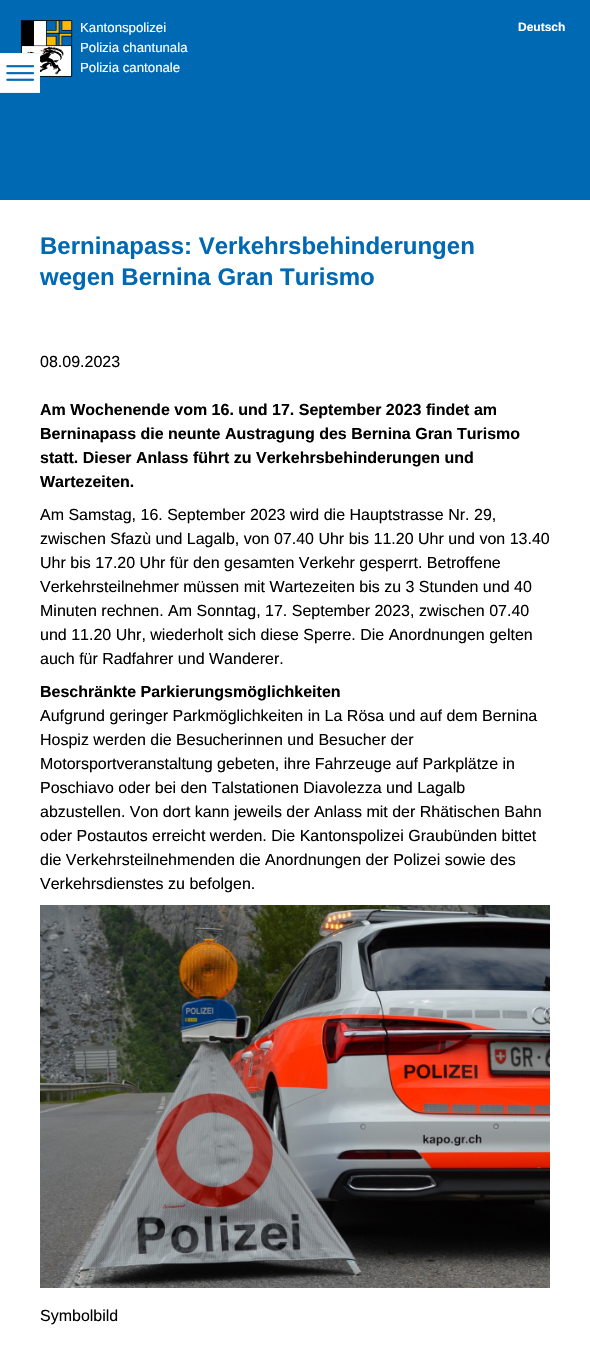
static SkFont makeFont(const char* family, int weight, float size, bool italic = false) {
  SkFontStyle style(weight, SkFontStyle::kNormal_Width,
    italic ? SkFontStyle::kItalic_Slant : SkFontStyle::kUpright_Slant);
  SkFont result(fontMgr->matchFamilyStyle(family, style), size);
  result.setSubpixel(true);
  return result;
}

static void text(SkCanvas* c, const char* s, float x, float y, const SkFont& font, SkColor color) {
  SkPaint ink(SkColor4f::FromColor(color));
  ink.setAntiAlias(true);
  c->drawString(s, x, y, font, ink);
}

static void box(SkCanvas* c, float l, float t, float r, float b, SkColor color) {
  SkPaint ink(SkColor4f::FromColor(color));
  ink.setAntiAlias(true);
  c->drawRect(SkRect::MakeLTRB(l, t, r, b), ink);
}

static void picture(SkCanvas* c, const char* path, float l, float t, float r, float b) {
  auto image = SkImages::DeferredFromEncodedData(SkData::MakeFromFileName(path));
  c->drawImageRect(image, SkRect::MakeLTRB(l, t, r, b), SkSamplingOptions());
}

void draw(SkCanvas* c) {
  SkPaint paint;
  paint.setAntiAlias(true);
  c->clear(0xffffffff);
  box(c, 0, 0, 590, 200, 0xff0069b4);
  picture(c, "img_01.png", 20, 20, 73, 77);
  SkFont face1 = makeFont("Liberation Sans", 400, 13.25f);
  text(c, "Kantonspolizei", 80, 32, face1, 0xffffffff);
  text(c, "Polizia chantunala", 80, 52, face1, 0xffffffff);
  text(c, "Polizia cantonale", 80, 72, face1, 0xffffffff);
  SkFont face2 = makeFont("Liberation Sans", 700, 12);
  text(c, "Deutsch", 518, 31, face2, 0xffffffff);
  box(c, 20, 53, 40, 77, 0xff0069b4);
  picture(c, "img_02.png", 0, 53, 40, 93);
  SkFont face3 = makeFont("Liberation Sans", 700, 24);
  text(c, "Berninapass: Verkehrsbehinderungen", 40, 254, face3, 0xff0069b4);
  text(c, "wegen Bernina Gran Turismo", 40, 285, face3, 0xff0069b4);
  SkFont face4 = makeFont("Liberation Sans", 400, 16);
  text(c, "08.09.2023", 40, 367, face4, 0xff000000);
  SkFont face5 = makeFont("Liberation Sans", 700, 16);
  text(c, "Am Wochenende vom 16. und 17. September 2023 findet am", 40, 415, face5, 0xff000000);
  text(c, "Berninapass die neunte Austragung des Bernina Gran Turismo", 40, 439, face5, 0xff000000);
  text(c, "statt. Dieser Anlass führt zu Verkehrsbehinderungen und", 40, 463, face5, 0xff000000);
  text(c, "Wartezeiten.", 40, 487, face5, 0xff000000);
  text(c, "Am Samstag, 16. September 2023 wird die Hauptstrasse Nr. 29,", 40, 520, face4, 0xff000000);
  text(c, "zwischen Sfazù und Lagalb, von 07.40 Uhr bis 11.20 Uhr und von 13.40", 40, 544, face4, 0xff000000);
  text(c, "Uhr bis 17.20 Uhr für den gesamten Verkehr gesperrt. Betroffene", 40, 568, face4, 0xff000000);
  text(c, "Verkehrsteilnehmer müssen mit Wartezeiten bis zu 3 Stunden und 40", 40, 592, face4, 0xff000000);
  text(c, "Minuten rechnen. Am Sonntag, 17. September 2023, zwischen 07.40", 40, 616, face4, 0xff000000);
  text(c, "und 11.20 Uhr, wiederholt sich diese Sperre. Die Anordnungen gelten", 40, 640, face4, 0xff000000);
  text(c, "auch für Radfahrer und Wanderer.", 40, 664, face4, 0xff000000);
  text(c, "Beschränkte Parkierungsmöglichkeiten", 40, 697, face5, 0xff000000);
  text(c, "Aufgrund geringer Parkmöglichkeiten in La Rösa und auf dem Bernina", 40, 721, face4, 0xff000000);
  text(c, "Hospiz werden die Besucherinnen und Besucher der", 40, 745, face4, 0xff000000);
  text(c, "Motorsportveranstaltung gebeten, ihre Fahrzeuge auf Parkplätze in", 40, 769, face4, 0xff000000);
  text(c, "Poschiavo oder bei den Talstationen Diavolezza und Lagalb", 40, 793, face4, 0xff000000);
  text(c, "abzustellen. Von dort kann jeweils der Anlass mit der Rhätischen Bahn", 40, 817, face4, 0xff000000);
  text(c, "oder Postautos erreicht werden. Die Kantonspolizei Graubünden bittet", 40, 841, face4, 0xff000000);
  text(c, "die Verkehrsteilnehmenden die Anordnungen der Polizei sowie des", 40, 865, face4, 0xff000000);
  text(c, "Verkehrsdienstes zu befolgen.", 40, 889, face4, 0xff000000);
  picture(c, "img_03.png", 40, 905, 550, 1288);
  text(c, "Symbolbild", 40, 1321, face4, 0xff000000);
}
